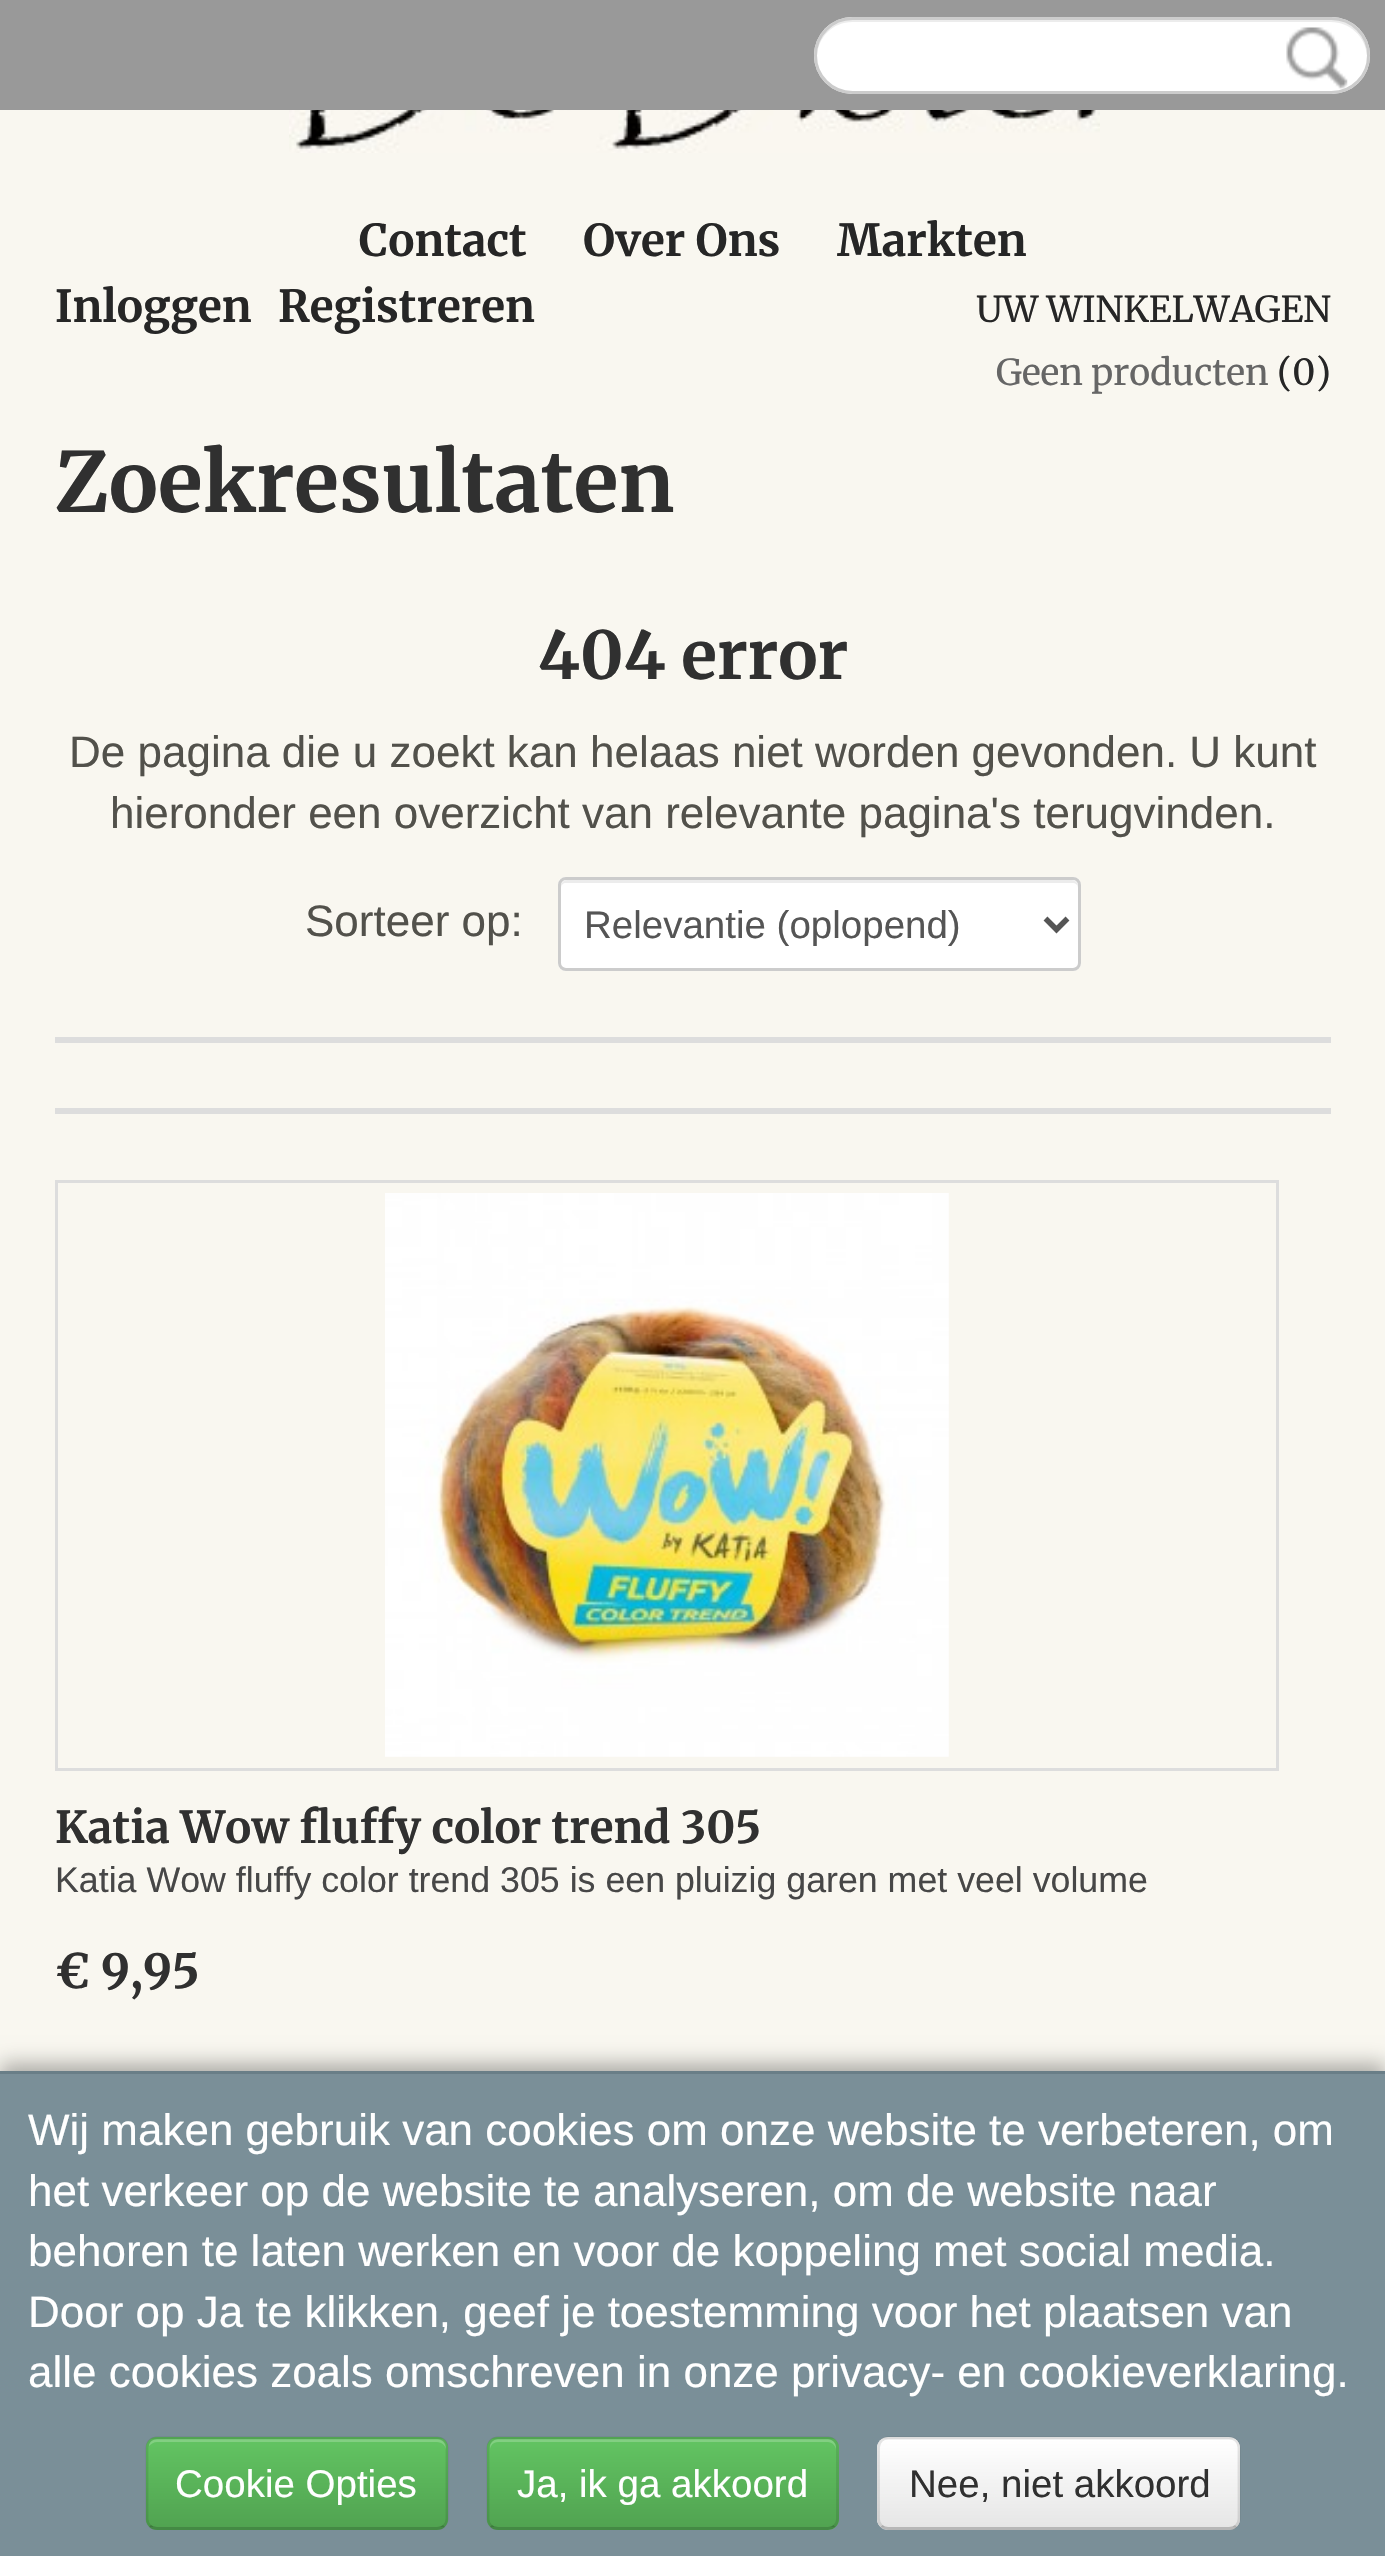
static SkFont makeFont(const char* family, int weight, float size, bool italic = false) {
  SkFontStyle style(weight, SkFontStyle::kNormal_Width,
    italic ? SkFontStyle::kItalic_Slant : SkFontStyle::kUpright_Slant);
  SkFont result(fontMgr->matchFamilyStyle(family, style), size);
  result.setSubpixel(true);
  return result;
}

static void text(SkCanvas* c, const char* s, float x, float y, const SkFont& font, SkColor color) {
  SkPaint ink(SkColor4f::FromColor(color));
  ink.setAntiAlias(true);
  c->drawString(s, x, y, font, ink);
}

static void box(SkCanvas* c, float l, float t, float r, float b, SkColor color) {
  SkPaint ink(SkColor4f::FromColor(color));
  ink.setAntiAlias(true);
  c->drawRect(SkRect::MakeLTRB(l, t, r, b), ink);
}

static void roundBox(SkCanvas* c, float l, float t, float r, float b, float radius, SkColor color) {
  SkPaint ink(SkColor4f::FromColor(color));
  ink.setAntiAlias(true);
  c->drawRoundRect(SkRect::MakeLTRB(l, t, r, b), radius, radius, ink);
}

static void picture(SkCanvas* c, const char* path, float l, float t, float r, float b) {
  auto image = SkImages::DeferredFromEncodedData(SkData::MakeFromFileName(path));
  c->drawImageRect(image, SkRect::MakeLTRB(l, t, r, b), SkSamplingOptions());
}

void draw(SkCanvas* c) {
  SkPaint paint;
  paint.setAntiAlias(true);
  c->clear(0xfff9f7f0);
  box(c, 0, 0, 1385, 110, 0xff999999);
  roundBox(c, 814, 17, 1370, 94, 38.5f, 0xffffffff);
  paint.setColor(0xffececec);
  c->drawPath(SkPathBuilder().moveTo(852, 22).lineTo(1331, 22).cubicTo(1350, 22, 1366, 37, 1367, 56).cubicTo(1368, 36, 1351, 19, 1331, 19).lineTo(853, 19).cubicTo(833, 19, 816, 36, 817, 56).cubicTo(818, 37, 833, 22, 852, 22).close().detach(), paint);
  paint.setStyle(SkPaint::kStroke_Style);
  paint.setStrokeWidth(3);
  paint.setColor(0xffcccccc);
  c->drawRoundRect(SkRect::MakeLTRB(815.5f, 18.5f, 1368.5f, 92.5f), 37, 37, paint);
  picture(c, "img_01.png", 1286, 27, 1348, 89);
  picture(c, "img_02.png", 289, 110, 1100, 153);
  SkFont face1 = makeFont("Merriweather", 700, 44);
  text(c, "Contact", 359, 256, face1, 0xff262626);
  text(c, "Over Ons", 583, 256, face1, 0xff262626);
  text(c, "Markten", 837, 256, face1, 0xff262626);
  text(c, "Inloggen", 55, 322, face1, 0xff262626);
  text(c, "Registreren", 278, 322, face1, 0xff262626);
  SkFont face2 = makeFont("Merriweather", 400, 35.75f);
  text(c, "UW WINKELWAGEN", 976, 322, face2, 0xff262626);
  text(c, "Geen producten", 996, 385, face2, 0xff666666);
  text(c, "(0)", 1277, 385, face2, 0xff262626);
  SkFont face3 = makeFont("Merriweather", 700, 82.5f);
  text(c, "Zoekresultaten", 55, 512, face3, 0xff303030);
  SkFont face4 = makeFont("Merriweather", 700, 66);
  text(c, "404 error", 538, 679, face4, 0xff303030);
  SkFont face5 = makeFont("Liberation Sans", 400, 44);
  text(c, "De pagina die u zoekt kan helaas niet worden gevonden. U kunt", 69, 767, face5, 0xff52514b);
  text(c, "hieronder een overzicht van relevante pagina's terugvinden.", 110, 828, face5, 0xff52514b);
  text(c, "Sorteer op:", 305, 936, face5, 0xff52514b);
  roundBox(c, 558, 877, 1081, 971, 8, 0xffffffff);
  paint.setStyle(SkPaint::kFill_Style);
  paint.setColor(0xffececec);
  c->drawPath(SkPathBuilder().moveTo(566, 883).lineTo(1072, 883).cubicTo(1076, 883, 1078, 885, 1078, 888).lineTo(1078, 886).cubicTo(1078, 883, 1075, 880, 1072, 880).lineTo(567, 880).cubicTo(564, 880, 561, 883, 561, 886).lineTo(561, 888).cubicTo(561, 885, 563, 883, 566, 883).close().detach(), paint);
  paint.setStyle(SkPaint::kStroke_Style);
  paint.setColor(0xffcccccc);
  c->drawRoundRect(SkRect::MakeLTRB(559.5f, 878.5f, 1079.5f, 969.5f), 6.5f, 6.5f, paint);
  paint.setStrokeWidth(5.5f);
  paint.setColor(0xff555555);
  c->drawPath(SkPathBuilder().moveTo(1045.5f, 918.5f).lineTo(1056.5f, 929.5f).lineTo(1067.5f, 918.5f).detach(), paint);
  SkFont face6 = makeFont("Liberation Sans", 400, 38.5f);
  text(c, "Relevantie (oplopend)", 584, 938, face6, 0xff555555);
  box(c, 55, 1037, 1331, 1043, 0xffdddddd);
  box(c, 55, 1108, 1331, 1114, 0xffdddddd);
  paint.setStrokeWidth(3);
  paint.setColor(0xffdddddd);
  c->drawRect(SkRect::MakeLTRB(56.5f, 1181.5f, 1277.5f, 1769.5f), paint);
  picture(c, "img_03.png", 385, 1193, 949, 1757);
  text(c, "Katia Wow fluffy color trend 305", 55, 1843, face1, 0xff303030);
  SkFont face7 = makeFont("Liberation Sans", 400, 35.75f);
  text(c, "Katia Wow fluffy color trend 305 is een pluizig garen met veel volume", 55, 1892, face7, 0xff474747);
  SkFont face8 = makeFont("Merriweather", 700, 47);
  text(c, "€ 9,95", 55, 1988, face8, 0xff303030);
  paint.setStyle(SkPaint::kFill_Style);
  paint.setColor(0x4d000000);
  paint.setMaskFilter(SkMaskFilter::MakeBlur(kNormal_SkBlurStyle, 9.5f));
  c->drawRect(SkRect::MakeLTRB(0, 2063, 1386, 2549), paint);
  paint.setMaskFilter(nullptr);
  box(c, 0, 2074, 1385, 2556, 0xff7a8f98);
  box(c, 0, 2071, 1385, 2074, 0xff697e87);
  text(c, "Wij maken gebruik van cookies om onze website te verbeteren, om", 28, 2145, face5, 0xffffffff);
  text(c, "het verkeer op de website te analyseren, om de website naar", 28, 2206, face5, 0xffffffff);
  text(c, "behoren te laten werken en voor de koppeling met social media.", 28, 2266, face5, 0xffffffff);
  text(c, "Door op Ja te klikken, geef je toestemming voor het plaatsen van", 28, 2327, face5, 0xffffffff);
  text(c, "alle cookies zoals omschreven in onze privacy- en cookieverklaring.", 28, 2387, face5, 0xffffffff);
  roundBox(c, 146, 2437, 448, 2530, 11, 0xff5bb75b);
  c->save();
  c->clipPath(SkPathBuilder().moveTo(157, 2437).lineTo(437, 2437).cubicTo(443, 2437, 448, 2442, 448, 2448).lineTo(448, 2519).cubicTo(448, 2525, 443, 2530, 437, 2530).lineTo(157, 2530).cubicTo(151, 2530, 146, 2525, 146, 2519).lineTo(146, 2448).cubicTo(146, 2442, 151, 2437, 157, 2437).close().detach(), true);
  {
    const SkColor colors[] = {0xff62c462, 0xff51a351};
    const float stops[] = {0, 1};
    const SkPoint ends[] = {{297, 2439}, {297, 2527}};
    paint.setShader(SkGradientShader::MakeLinear(ends, colors, stops, 2, SkTileMode::kClamp));
    paint.setAlpha(255);
  }
  c->drawRect(SkRect::MakeLTRB(146, 2439, 448, 2527), paint);
  c->restore();
  paint.setShader(nullptr);
  paint.setColor(0x33ffffff);
  c->drawPath(SkPathBuilder().moveTo(157, 2442).lineTo(437, 2442).cubicTo(442, 2442, 446, 2446, 446, 2450).lineTo(446, 2447).cubicTo(446, 2443, 442, 2439, 438, 2439).lineTo(157, 2439).cubicTo(153, 2439, 149, 2442, 149, 2446).cubicTo(151, 2444, 154, 2442, 157, 2442).close().detach(), paint);
  paint.setStyle(SkPaint::kStroke_Style);
  paint.setStrokeWidth(2.8f);
  paint.setColor(0x40000000);
  c->drawPath(SkPathBuilder().moveTo(444, 2526).cubicTo(442.5f, 2527.5f, 440, 2528.5f, 437, 2528.5f).lineTo(157, 2528.5f).cubicTo(154, 2528.5f, 151.5f, 2527.5f, 150, 2526).detach(), paint);
  paint.setColor(0x1a000000);
  c->drawPath(SkPathBuilder().moveTo(150, 2526).cubicTo(148, 2524, 147, 2521.5f, 147, 2519).lineTo(147, 2447.5f).cubicTo(147, 2445, 148, 2442.5f, 150, 2440.5f).cubicTo(151.5f, 2439, 154, 2438, 157, 2438).lineTo(437, 2438).cubicTo(440, 2438, 442.5f, 2439, 444, 2440.5f).cubicTo(446, 2442.5f, 447, 2445, 447, 2447.5f).lineTo(447, 2519).cubicTo(447, 2521.5f, 446, 2524, 444, 2526).detach(), paint);
  text(c, "Cookie Opties", 175, 2497, face6, 0xffffffff);
  roundBox(c, 487, 2437, 839, 2530, 11, 0xff5bb75b);
  c->save();
  c->clipPath(SkPathBuilder().moveTo(498, 2437).lineTo(828, 2437).cubicTo(834, 2437, 839, 2442, 839, 2448).lineTo(839, 2519).cubicTo(839, 2525, 834, 2530, 828, 2530).lineTo(498, 2530).cubicTo(492, 2530, 487, 2525, 487, 2519).lineTo(487, 2448).cubicTo(487, 2442, 492, 2437, 498, 2437).close().detach(), true);
  paint.setStyle(SkPaint::kFill_Style);
  {
    const SkColor colors[] = {0xff62c462, 0xff51a351};
    const float stops[] = {0, 1};
    const SkPoint ends[] = {{663, 2439}, {663, 2527}};
    paint.setShader(SkGradientShader::MakeLinear(ends, colors, stops, 2, SkTileMode::kClamp));
    paint.setAlpha(255);
  }
  c->drawRect(SkRect::MakeLTRB(487, 2439, 839, 2527), paint);
  c->restore();
  paint.setShader(nullptr);
  paint.setColor(0x33ffffff);
  c->drawPath(SkPathBuilder().moveTo(498, 2442).lineTo(828, 2442).cubicTo(832, 2442, 836, 2446, 836, 2450).lineTo(836, 2447).cubicTo(836, 2443, 832, 2439, 828, 2439).lineTo(498, 2439).cubicTo(494, 2439, 490, 2443, 490, 2447).lineTo(490, 2450).cubicTo(490, 2446, 493, 2442, 498, 2442).close().detach(), paint);
  paint.setStyle(SkPaint::kStroke_Style);
  paint.setColor(0x40000000);
  c->drawPath(SkPathBuilder().moveTo(834.5f, 2526).cubicTo(833, 2527.5f, 830.5f, 2528.5f, 828, 2528.5f).lineTo(498, 2528.5f).cubicTo(495, 2528.5f, 492.5f, 2527.5f, 491, 2526).detach(), paint);
  paint.setColor(0x1a000000);
  c->drawPath(SkPathBuilder().moveTo(491, 2526).cubicTo(489, 2524, 488, 2521.5f, 488, 2519).lineTo(488, 2447.5f).cubicTo(488, 2445, 489, 2442.5f, 491, 2440.5f).cubicTo(492.5f, 2439, 495, 2438, 498, 2438).lineTo(828, 2438).cubicTo(830.5f, 2438, 833, 2439, 834.5f, 2440.5f).cubicTo(836.5f, 2442.5f, 837.5f, 2445, 837.5f, 2447.5f).lineTo(837.5f, 2519).cubicTo(837.5f, 2521.5f, 836.5f, 2524, 834.5f, 2526).detach(), paint);
  text(c, "Ja, ik ga akkoord", 517, 2497, face6, 0xffffffff);
  roundBox(c, 877, 2437, 1240, 2530, 11, 0xfff5f5f5);
  c->save();
  c->clipPath(SkPathBuilder().moveTo(888, 2437).lineTo(1229, 2437).cubicTo(1235, 2437, 1240, 2442, 1240, 2448).lineTo(1240, 2519).cubicTo(1240, 2525, 1235, 2530, 1229, 2530).lineTo(888, 2530).cubicTo(882, 2530, 877, 2525, 877, 2519).lineTo(877, 2448).cubicTo(877, 2442, 882, 2437, 888, 2437).close().detach(), true);
  paint.setStyle(SkPaint::kFill_Style);
  {
    const SkColor colors[] = {0xffffffff, 0xffe6e6e6};
    const float stops[] = {0, 1};
    const SkPoint ends[] = {{1059, 2439}, {1059, 2527}};
    paint.setShader(SkGradientShader::MakeLinear(ends, colors, stops, 2, SkTileMode::kClamp));
    paint.setAlpha(255);
  }
  c->drawRect(SkRect::MakeLTRB(877, 2439, 1240, 2527), paint);
  c->restore();
  paint.setStyle(SkPaint::kStroke_Style);
  paint.setShader(nullptr);
  paint.setColor(0x40000000);
  c->drawPath(SkPathBuilder().moveTo(1236, 2526).cubicTo(1234.5f, 2527.5f, 1232, 2528.5f, 1229, 2528.5f).lineTo(888, 2528.5f).cubicTo(885.5f, 2528.5f, 883, 2527.5f, 881.5f, 2526).detach(), paint);
  paint.setColor(0x1a000000);
  c->drawPath(SkPathBuilder().moveTo(881.5f, 2526).cubicTo(879.5f, 2524, 878.5f, 2521.5f, 878.5f, 2519).lineTo(878.5f, 2447.5f).cubicTo(878.5f, 2445, 879.5f, 2442.5f, 881.5f, 2440.5f).cubicTo(883, 2439, 885.5f, 2438, 888, 2438).lineTo(1229, 2438).cubicTo(1232, 2438, 1234.5f, 2439, 1236, 2440.5f).cubicTo(1238, 2442.5f, 1239, 2445, 1239, 2447.5f).lineTo(1239, 2519).cubicTo(1239, 2521.5f, 1238, 2524, 1236, 2526).detach(), paint);
  text(c, "Nee, niet akkoord", 909, 2497, face6, 0xff303030);
}
